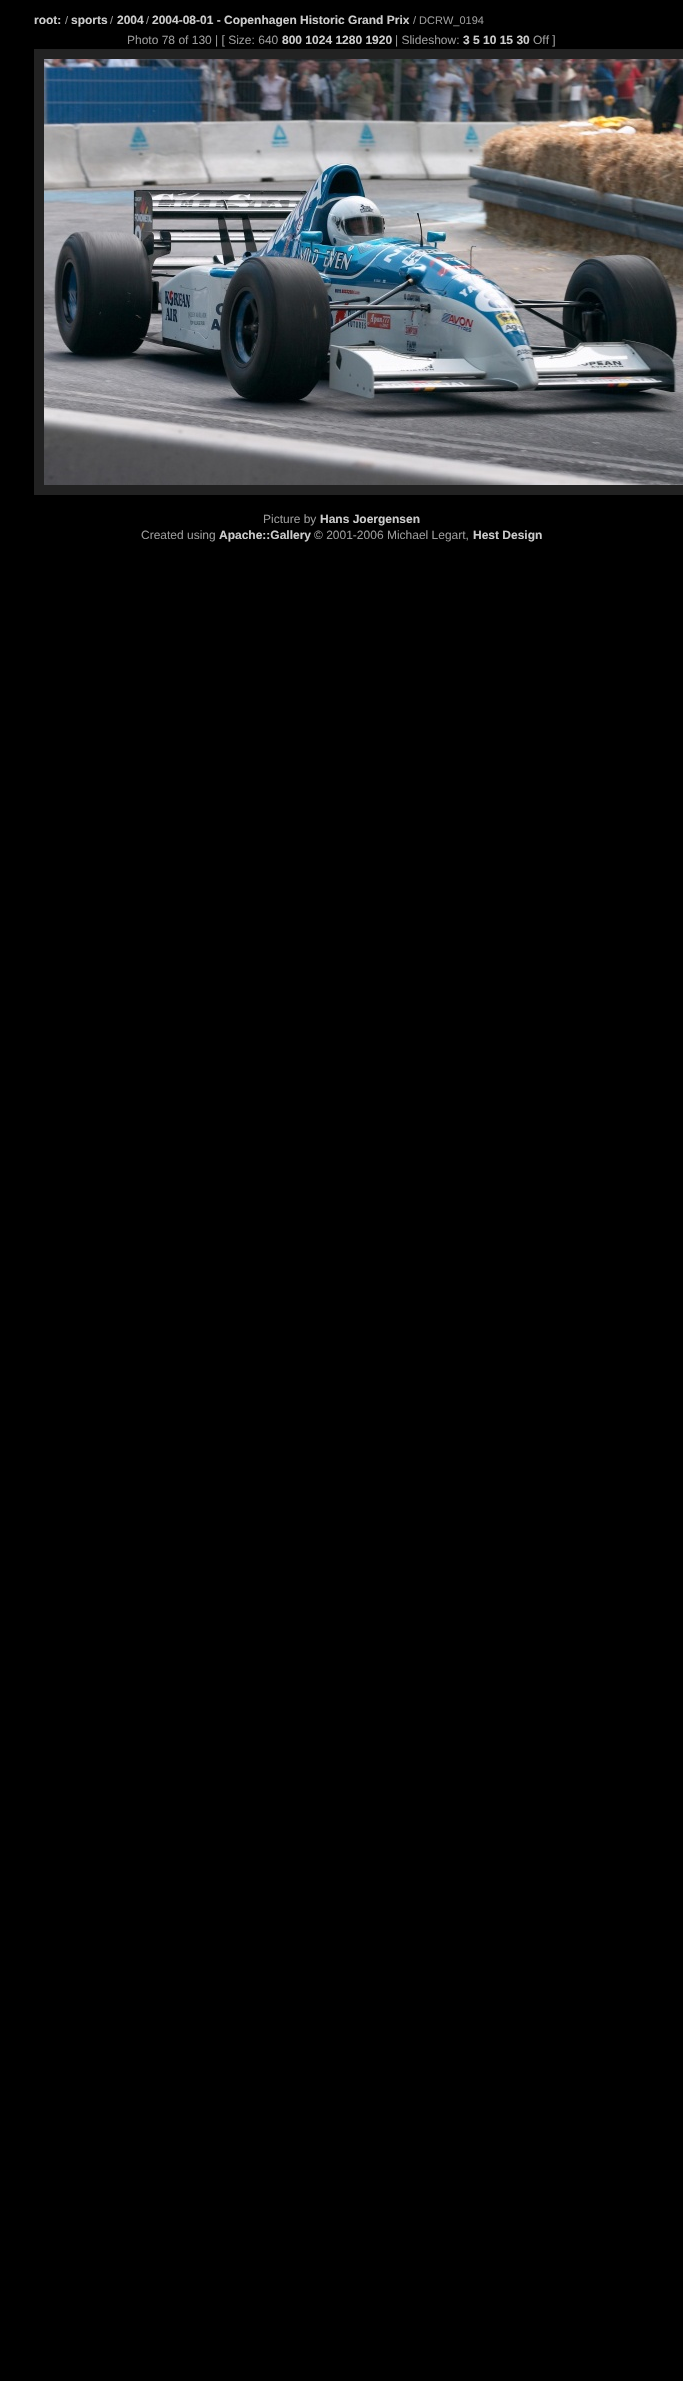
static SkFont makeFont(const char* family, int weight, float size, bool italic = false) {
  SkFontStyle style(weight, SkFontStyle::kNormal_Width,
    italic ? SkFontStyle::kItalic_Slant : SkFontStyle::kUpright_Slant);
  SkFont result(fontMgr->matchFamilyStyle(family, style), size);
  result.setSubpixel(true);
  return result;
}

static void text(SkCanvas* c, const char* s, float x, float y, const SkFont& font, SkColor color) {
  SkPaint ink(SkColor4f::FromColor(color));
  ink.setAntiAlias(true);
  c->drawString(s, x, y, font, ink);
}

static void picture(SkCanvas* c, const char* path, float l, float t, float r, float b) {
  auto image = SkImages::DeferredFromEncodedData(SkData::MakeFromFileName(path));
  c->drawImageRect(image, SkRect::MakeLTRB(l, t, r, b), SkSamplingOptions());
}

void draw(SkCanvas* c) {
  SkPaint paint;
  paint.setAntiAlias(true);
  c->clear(0xff000000);
  SkFont face1 = makeFont("Liberation Sans", 700, 12);
  text(c, "root:", 34, 24, face1, 0xffcccccc);
  SkFont face2 = makeFont("Liberation Sans", 400, 11);
  text(c, "/", 65, 24, face2, 0xff999999);
  text(c, "sports", 71, 24, face1, 0xffcccccc);
  text(c, "/", 110, 24, face2, 0xff999999);
  text(c, "2004", 117, 24, face1, 0xffcccccc);
  text(c, "/", 146, 24, face2, 0xff999999);
  text(c, "2004-08-01 - Copenhagen Historic Grand Prix", 152, 24, face1, 0xffcccccc);
  text(c, "/ DCRW_0194", 413, 24, face2, 0xff999999);
  SkFont face3 = makeFont("Liberation Sans", 400, 12);
  text(c, "Photo 78 of 130 | [ Size: 640", 127, 44, face3, 0xff999999);
  text(c, "800 1024 1280 1920", 282, 44, face1, 0xffcccccc);
  text(c, "| Slideshow:", 395, 44, face3, 0xff999999);
  text(c, "3 5 10 15 30", 463, 44, face1, 0xffcccccc);
  text(c, "Off ]", 533, 44, face3, 0xff999999);
  paint.setStyle(SkPaint::kStroke_Style);
  paint.setStrokeWidth(10);
  paint.setColor(0xff222222);
  c->drawRect(SkRect::MakeLTRB(39, 54, 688, 490), paint);
  picture(c, "img_01.png", 44, 59, 683, 485);
  text(c, "Picture by", 263, 523, face3, 0xff999999);
  text(c, "Hans Joergensen", 320, 523, face1, 0xffcccccc);
  text(c, "Created using", 141, 539, face3, 0xff999999);
  text(c, "Apache::Gallery", 219, 539, face1, 0xffcccccc);
  text(c, "© 2001-2006 Michael Legart,", 314, 539, face3, 0xff999999);
  text(c, "Hest Design", 473, 539, face1, 0xffcccccc);
}
